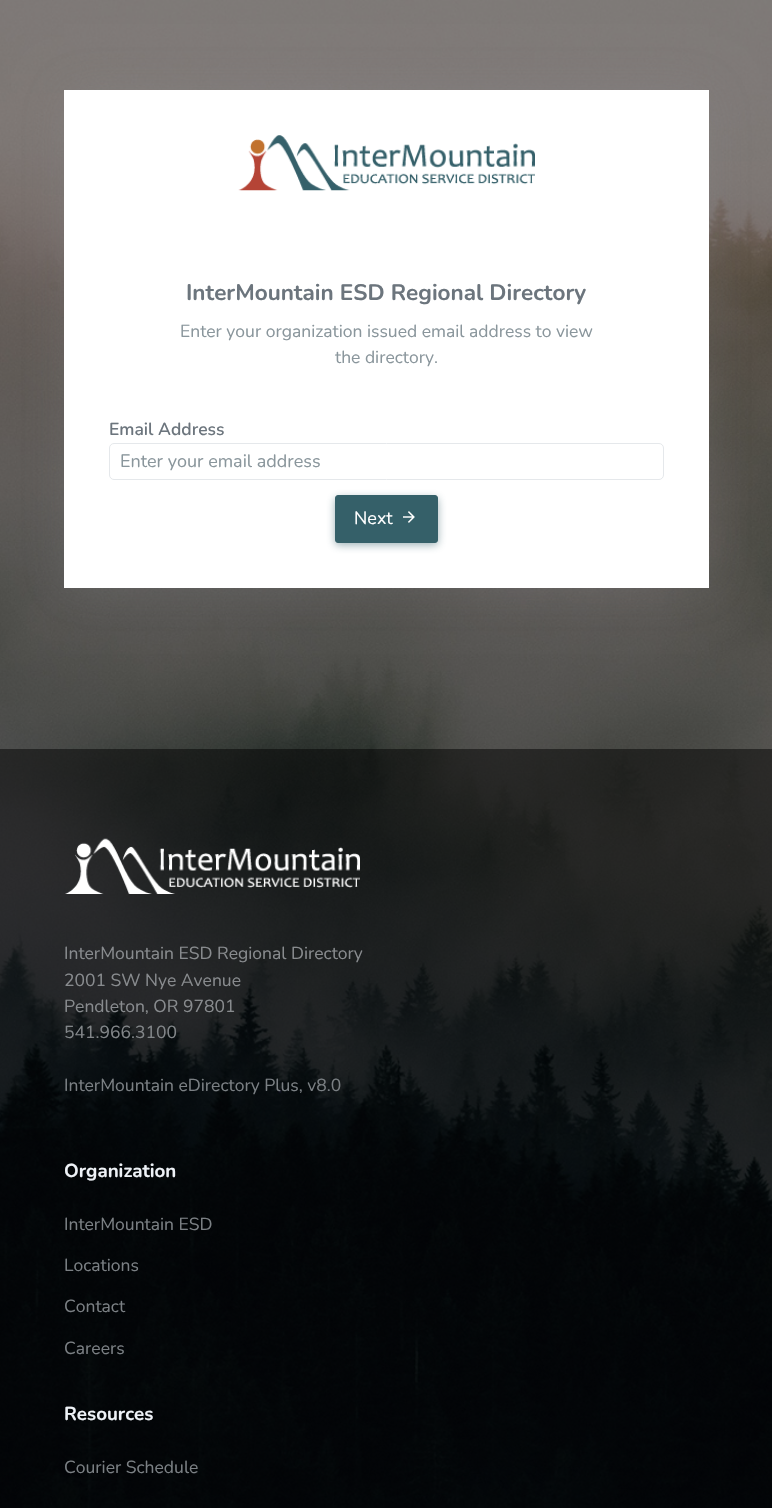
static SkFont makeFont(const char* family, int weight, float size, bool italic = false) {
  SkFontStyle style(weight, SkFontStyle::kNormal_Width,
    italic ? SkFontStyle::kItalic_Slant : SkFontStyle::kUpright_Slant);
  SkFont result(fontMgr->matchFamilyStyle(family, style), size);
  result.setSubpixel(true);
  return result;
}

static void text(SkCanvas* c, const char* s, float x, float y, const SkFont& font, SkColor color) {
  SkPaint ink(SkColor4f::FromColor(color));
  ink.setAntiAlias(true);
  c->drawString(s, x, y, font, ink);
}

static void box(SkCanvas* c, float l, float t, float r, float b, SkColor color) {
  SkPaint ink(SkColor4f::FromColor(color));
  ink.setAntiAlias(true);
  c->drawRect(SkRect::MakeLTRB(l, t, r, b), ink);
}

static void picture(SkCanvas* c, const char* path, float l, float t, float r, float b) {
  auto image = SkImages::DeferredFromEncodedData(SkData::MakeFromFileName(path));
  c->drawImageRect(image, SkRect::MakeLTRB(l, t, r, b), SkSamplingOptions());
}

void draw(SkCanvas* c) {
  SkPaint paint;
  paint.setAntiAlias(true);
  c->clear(0xffffffff);
  picture(c, "img_01.png", 0, 0, 772, 1508);
  paint.setColor(0x269aa1ab);
  paint.setMaskFilter(SkMaskFilter::MakeBlur(kNormal_SkBlurStyle, 22));
  c->drawRect(SkRect::MakeLTRB(64, 90, 709, 588), paint);
  paint.setMaskFilter(nullptr);
  box(c, 64, 90, 709, 588, 0xffffffff);
  picture(c, "img_02.png", 238, 135, 535, 191);
  SkFont face1 = makeFont("Nunito", 700, 22.5f);
  text(c, "InterMountain ESD Regional Directory", 186, 300, face1, 0xff6c757d);
  SkFont face2 = makeFont("Nunito", 400, 17.5f);
  text(c, "Enter your organization issued email address to view", 180, 337, face2, 0xff8a969c);
  text(c, "the directory.", 335, 363, face2, 0xff8a969c);
  SkFont face3 = makeFont("Nunito", 600, 17.5f);
  text(c, "Email Address", 109, 435, face3, 0xff6c757d);
  paint.setStyle(SkPaint::kStroke_Style);
  paint.setStrokeWidth(1);
  paint.setColor(0xffe5e8eb);
  c->drawRoundRect(SkRect::MakeLTRB(109.5f, 443.5f, 663.5f, 479.5f), 4.5f, 4.5f, paint);
  SkFont face4 = makeFont("Nunito", 400, 18);
  text(c, "Enter your email address", 120, 467, face4, 0xff8a969c);
  paint.setStyle(SkPaint::kFill_Style);
  paint.setColor(0x80356069);
  paint.setMaskFilter(SkMaskFilter::MakeBlur(kNormal_SkBlurStyle, 4));
  c->drawRoundRect(SkRect::MakeLTRB(335, 498, 438, 545), 3, 3, paint);
  paint.setMaskFilter(nullptr);
  paint.setColor(0xff356069);
  c->drawRoundRect(SkRect::MakeLTRB(335.5f, 495.5f, 437.5f, 542.5f), 2.5f, 2.5f, paint);
  paint.setStyle(SkPaint::kStroke_Style);
  c->drawRoundRect(SkRect::MakeLTRB(335.5f, 495.5f, 437.5f, 542.5f), 2.5f, 2.5f, paint);
  text(c, "Next", 354, 524, face4, 0xffffffff);
  picture(c, "img_03.png", 403, 511, 415, 523);
  box(c, 0, 749, 772, 1508, 0x80000000);
  picture(c, "img_04.png", 65, 838, 360, 894);
  text(c, "InterMountain ESD Regional Directory", 64, 959, face2, 0xff888b8e);
  text(c, "2001 SW Nye Avenue", 64, 986, face2, 0xff888b8e);
  text(c, "Pendleton, OR 97801", 64, 1012, face2, 0xff888b8e);
  text(c, "541.966.3100", 64, 1038, face2, 0xff828689);
  text(c, "InterMountain eDirectory Plus, v8.0", 64, 1091, face2, 0xff7b8084);
  SkFont face5 = makeFont("Nunito", 700, 18.75f);
  text(c, "Organization", 64, 1177, face5, 0xffeef2f7);
  text(c, "InterMountain ESD", 64, 1230, face2, 0xff7b8084);
  text(c, "Locations", 64, 1271, face2, 0xff7b8084);
  text(c, "Contact", 64, 1312, face2, 0xff7b8084);
  text(c, "Careers", 64, 1354, face2, 0xff7b8084);
  text(c, "Resources", 64, 1420, face5, 0xffeef2f7);
  text(c, "Courier Schedule", 64, 1473, face2, 0xff7b8084);
}
